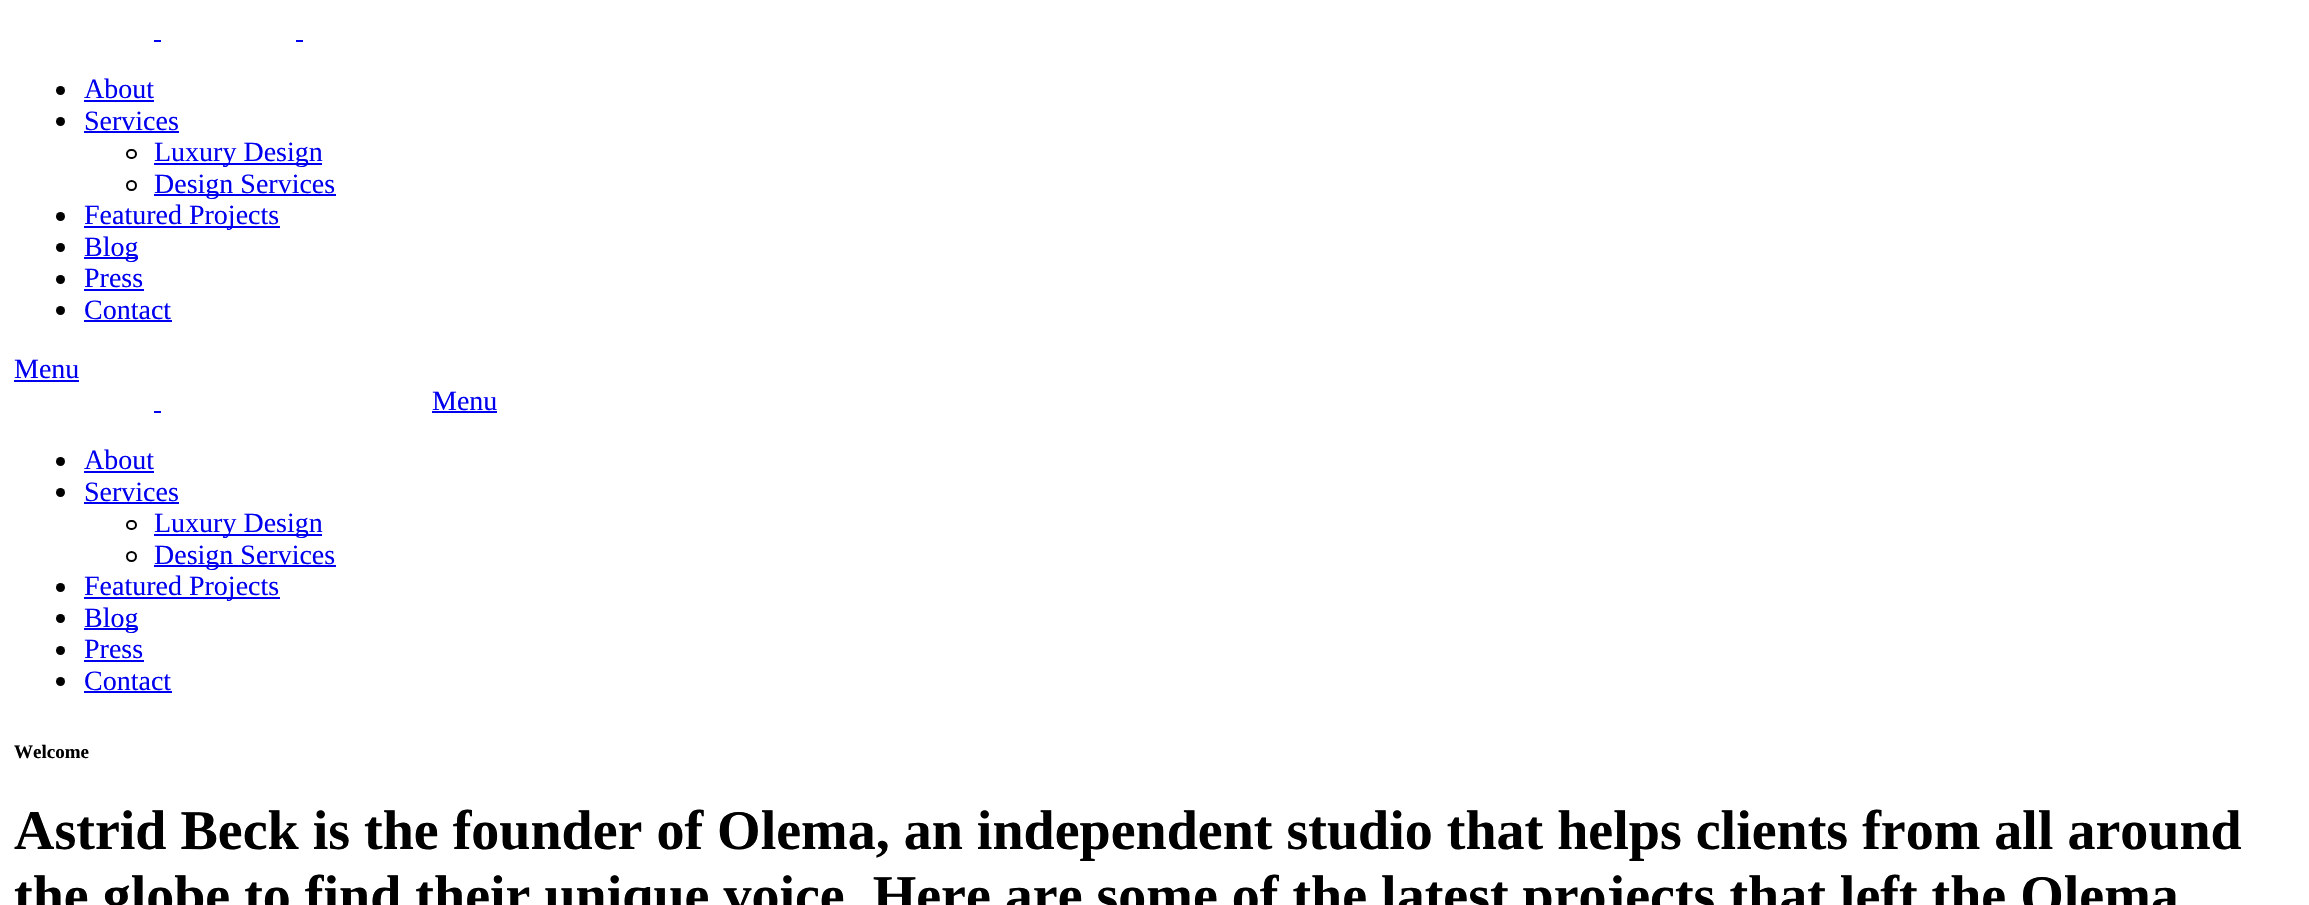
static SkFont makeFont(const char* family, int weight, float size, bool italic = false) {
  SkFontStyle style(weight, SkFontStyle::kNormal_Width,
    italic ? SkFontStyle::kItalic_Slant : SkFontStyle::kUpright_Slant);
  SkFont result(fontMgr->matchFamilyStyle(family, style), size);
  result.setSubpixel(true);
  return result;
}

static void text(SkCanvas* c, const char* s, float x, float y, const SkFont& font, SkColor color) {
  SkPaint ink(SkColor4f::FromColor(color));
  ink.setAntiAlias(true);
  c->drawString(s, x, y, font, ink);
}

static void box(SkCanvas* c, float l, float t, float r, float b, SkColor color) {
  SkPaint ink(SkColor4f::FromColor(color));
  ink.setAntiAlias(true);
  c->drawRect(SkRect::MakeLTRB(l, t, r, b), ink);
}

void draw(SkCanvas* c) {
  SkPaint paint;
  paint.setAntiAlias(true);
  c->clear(0xffffffff);
  box(c, 154, 40, 161, 42, 0xff0000ee);
  box(c, 296, 40, 303, 42, 0xff0000ee);
  paint.setColor(0xff000000);
  c->drawCircle(60.5f, 90.5f, 4.5f, paint);
  SkFont face1 = makeFont("Liberation Serif", 400, 28);
  text(c, "About", 84, 98, face1, 0xff0000ee);
  box(c, 84, 100, 154, 102, 0xff0000ee);
  c->drawCircle(60.5f, 121.5f, 4.5f, paint);
  text(c, "Services", 84, 130, face1, 0xff0000ee);
  box(c, 84, 131, 179, 133, 0xff0000ee);
  paint.setStyle(SkPaint::kStroke_Style);
  paint.setStrokeWidth(2);
  c->drawRoundRect(SkRect::MakeLTRB(127, 150, 136, 158), 4, 4, paint);
  box(c, 154, 163, 322, 165, 0xff0000ee);
  text(c, "Luxury Design", 154, 161, face1, 0xff0000ee);
  c->drawCircle(131.5f, 185.5f, 4.5f, paint);
  box(c, 154, 194, 336, 196, 0xff0000ee);
  text(c, "Design Services", 154, 193, face1, 0xff0000ee);
  paint.setStyle(SkPaint::kFill_Style);
  c->drawCircle(60.5f, 216.5f, 4.5f, paint);
  box(c, 84, 226, 280, 228, 0xff0000ee);
  text(c, "Featured Projects", 84, 224, face1, 0xff0000ee);
  c->drawCircle(60.5f, 247.5f, 4.5f, paint);
  box(c, 84, 257, 138, 259, 0xff0000ee);
  text(c, "Blog", 84, 256, face1, 0xff0000ee);
  c->drawCircle(60.5f, 279.5f, 4.5f, paint);
  text(c, "Press", 84, 287, face1, 0xff0000ee);
  box(c, 84, 289, 144, 291, 0xff0000ee);
  c->drawCircle(60.5f, 310.5f, 4.5f, paint);
  text(c, "Contact", 84, 319, face1, 0xff0000ee);
  box(c, 84, 320, 172, 322, 0xff0000ee);
  text(c, "Menu", 14, 378, face1, 0xff0000ee);
  box(c, 14, 380, 79, 382, 0xff0000ee);
  text(c, "Menu", 432, 410, face1, 0xff0000ee);
  box(c, 432, 411, 497, 413, 0xff0000ee);
  box(c, 154, 411, 161, 413, 0xff0000ee);
  c->drawCircle(60.5f, 461.5f, 4.5f, paint);
  text(c, "About", 84, 469, face1, 0xff0000ee);
  box(c, 84, 471, 154, 473, 0xff0000ee);
  c->drawCircle(60.5f, 492.5f, 4.5f, paint);
  text(c, "Services", 84, 501, face1, 0xff0000ee);
  box(c, 84, 502, 179, 504, 0xff0000ee);
  paint.setStyle(SkPaint::kStroke_Style);
  c->drawRoundRect(SkRect::MakeLTRB(127, 521, 136, 529), 4, 4, paint);
  box(c, 154, 534, 322, 536, 0xff0000ee);
  text(c, "Luxury Design", 154, 532, face1, 0xff0000ee);
  c->drawCircle(131.5f, 556.5f, 4.5f, paint);
  box(c, 154, 565, 336, 567, 0xff0000ee);
  text(c, "Design Services", 154, 564, face1, 0xff0000ee);
  paint.setStyle(SkPaint::kFill_Style);
  c->drawCircle(60.5f, 587.5f, 4.5f, paint);
  box(c, 84, 597, 280, 599, 0xff0000ee);
  text(c, "Featured Projects", 84, 595, face1, 0xff0000ee);
  c->drawCircle(60.5f, 618.5f, 4.5f, paint);
  box(c, 84, 628, 138, 630, 0xff0000ee);
  text(c, "Blog", 84, 627, face1, 0xff0000ee);
  c->drawCircle(60.5f, 650.5f, 4.5f, paint);
  text(c, "Press", 84, 658, face1, 0xff0000ee);
  box(c, 84, 660, 144, 662, 0xff0000ee);
  c->drawCircle(60.5f, 681.5f, 4.5f, paint);
  text(c, "Contact", 84, 690, face1, 0xff0000ee);
  box(c, 84, 691, 172, 693, 0xff0000ee);
  SkFont face2 = makeFont("Liberation Serif", 700, 19);
  text(c, "Welcome", 14, 758, face2, 0xff000000);
  SkFont face3 = makeFont("Liberation Serif", 700, 56);
  text(c, "Astrid Beck is the founder of Olema, an independent studio that helps clients from all around", 14, 849, face3, 0xff000000);
  text(c, "the globe to find their unique voice. Here are some of the latest projects that left the Olema", 14, 914, face3, 0xff000000);
}
